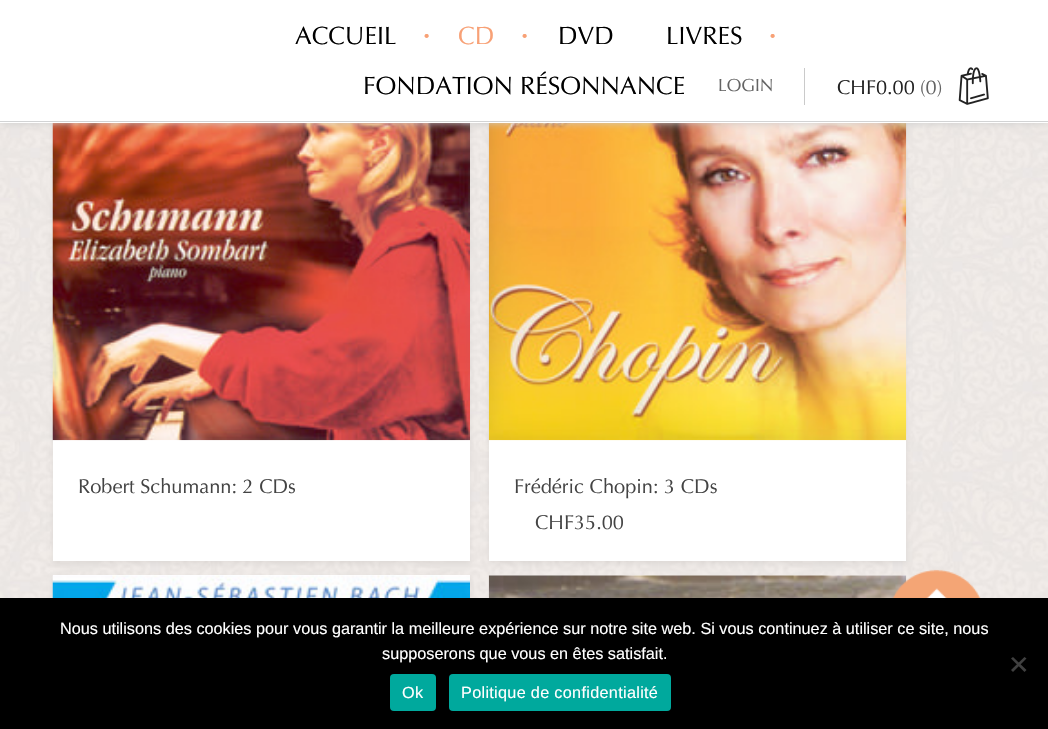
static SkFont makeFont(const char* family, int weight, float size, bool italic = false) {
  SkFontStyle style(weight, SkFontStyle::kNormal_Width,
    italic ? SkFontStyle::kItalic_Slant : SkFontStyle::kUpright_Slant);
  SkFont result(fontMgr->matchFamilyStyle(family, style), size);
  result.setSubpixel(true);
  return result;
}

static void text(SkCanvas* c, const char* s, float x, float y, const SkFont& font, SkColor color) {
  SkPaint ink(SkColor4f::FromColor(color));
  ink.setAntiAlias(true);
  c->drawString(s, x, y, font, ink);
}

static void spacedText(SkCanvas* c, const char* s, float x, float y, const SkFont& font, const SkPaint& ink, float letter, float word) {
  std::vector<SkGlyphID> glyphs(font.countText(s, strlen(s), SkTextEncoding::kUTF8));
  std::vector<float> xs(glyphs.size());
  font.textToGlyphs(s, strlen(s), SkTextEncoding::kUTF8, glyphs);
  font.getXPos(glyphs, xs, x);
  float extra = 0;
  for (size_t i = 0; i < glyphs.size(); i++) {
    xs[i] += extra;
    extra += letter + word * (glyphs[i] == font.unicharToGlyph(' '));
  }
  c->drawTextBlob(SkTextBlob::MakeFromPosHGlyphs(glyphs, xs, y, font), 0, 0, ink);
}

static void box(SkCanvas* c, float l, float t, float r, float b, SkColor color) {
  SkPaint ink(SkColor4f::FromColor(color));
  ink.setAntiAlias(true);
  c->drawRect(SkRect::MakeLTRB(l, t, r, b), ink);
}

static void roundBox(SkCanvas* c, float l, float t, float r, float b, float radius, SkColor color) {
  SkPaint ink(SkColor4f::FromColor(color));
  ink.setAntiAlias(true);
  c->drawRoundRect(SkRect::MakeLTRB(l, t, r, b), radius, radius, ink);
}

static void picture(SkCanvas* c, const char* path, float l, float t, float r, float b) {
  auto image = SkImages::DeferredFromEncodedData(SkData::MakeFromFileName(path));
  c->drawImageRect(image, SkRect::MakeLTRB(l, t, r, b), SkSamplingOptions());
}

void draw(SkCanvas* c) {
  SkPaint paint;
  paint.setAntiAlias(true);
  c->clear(0xffffffff);
  picture(c, "img_01.png", 0, 123, 1048, 598);
  paint.setColor(0x0f000000);
  paint.setMaskFilter(SkMaskFilter::MakeBlur(kNormal_SkBlurStyle, 2.5f));
  c->drawRect(SkRect::MakeLTRB(53, 26, 470, 564), paint);
  paint.setMaskFilter(nullptr);
  box(c, 53, 440, 470, 561, 0xffffffff);
  picture(c, "img_03.png", 52, 123, 470, 441);
  paint.setMaskFilter(SkMaskFilter::MakeBlur(kNormal_SkBlurStyle, 2.5f));
  c->drawRect(SkRect::MakeLTRB(489, 26, 906, 564), paint);
  paint.setMaskFilter(nullptr);
  box(c, 489, 440, 906, 561, 0xffffffff);
  picture(c, "img_04.png", 488, 123, 907, 441);
  paint.setColor(0xffcccccc);
  paint.setMaskFilter(SkMaskFilter::MakeBlur(kNormal_SkBlurStyle, 4));
  c->drawRect(SkRect::MakeLTRB(0, 0, 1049, 123), paint);
  paint.setMaskFilter(nullptr);
  box(c, 0, 0, 1048, 123, 0xffffffff);
  box(c, 0, 121, 1048, 122, 0xffd2d3d4);
  SkFont face1 = makeFont("Optima", 400, 25);
  text(c, "ACCUEIL", 295, 44, face1, 0xff000000);
  SkFont face2 = makeFont("Optima", 400, 12);
  text(c, "•", 423, 40, face2, 0xfff8a176);
  text(c, "CD", 458, 44, face1, 0xfff8a176);
  text(c, "•", 521, 40, face2, 0xfff8a176);
  text(c, "DVD", 558, 44, face1, 0xff000000);
  text(c, "LIVRES", 666, 44, face1, 0xff000000);
  text(c, "•", 769, 40, face2, 0xfff8a176);
  text(c, "FONDATION RÉSONNANCE", 363, 94, face1, 0xff000000);
  box(c, 804, 68, 805, 105, 0xffcacaca);
  SkFont face3 = makeFont("Optima", 400, 17.5f);
  text(c, "LOGIN", 718, 91, face3, 0xff646464);
  SkFont face4 = makeFont("Optima", 400, 20);
  text(c, "CHF0.00", 837, 94, face4, 0xff222222);
  text(c, "(0)", 920, 94, face4, 0xff646464);
  picture(c, "img_02.png", 958, 67, 989, 105);
  text(c, "Robert Schumann: 2 CDs", 78, 493, face4, 0xff444444);
  text(c, "Frédéric Chopin: 3 CDs", 514, 493, face4, 0xff444444);
  text(c, "CHF35.00", 535, 529, face4, 0xff444444);
  paint.setColor(0x0f000000);
  paint.setMaskFilter(SkMaskFilter::MakeBlur(kNormal_SkBlurStyle, 2.5f));
  c->drawRect(SkRect::MakeLTRB(53, 578, 470, 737), paint);
  paint.setMaskFilter(nullptr);
  box(c, 53, 575, 470, 576, 0xffffffff);
  picture(c, "img_05.png", 52, 575, 470, 598);
  box(c, 489, 575, 906, 576, 0xffffffff);
  picture(c, "img_06.png", 488, 575, 907, 598);
  picture(c, "img_07.png", 892, 569, 981, 598);
  box(c, 0, 598, 1048, 729, 0xff000000);
  SkFont face5 = makeFont("Liberation Sans", 400, 16.25f);
  text(c, "Nous utilisons des cookies pour vous garantir la meilleure expérience sur notre site web. Si vous continuez à utiliser ce site, nous", 60, 634, face5, 0xffffffff);
  text(c, "supposerons que vous en êtes satisfait.", 382, 659, face5, 0xffffffff);
  paint.setColor(0xff404040);
  c->drawPath(SkPathBuilder().moveTo(1024.5f, 657).lineTo(1026.5f, 658.5f).lineTo(1013, 672).lineTo(1011, 670).close().detach(), paint);
  c->drawPath(SkPathBuilder().moveTo(1011, 658.5f).lineTo(1013, 657).lineTo(1026.5f, 670).lineTo(1024.5f, 672).close().detach(), paint);
  roundBox(c, 390, 674, 436, 711, 4, 0xff00a99d);
  paint.setColor(0xffffffff);
  spacedText(c, "Ok", 402, 698, face5, paint, 0.3f, 0);
  roundBox(c, 449, 674, 671, 711, 4, 0xff00a99d);
  spacedText(c, "Politique de confidentialité", 461, 698, face5, paint, 0.3f, 0);
}
